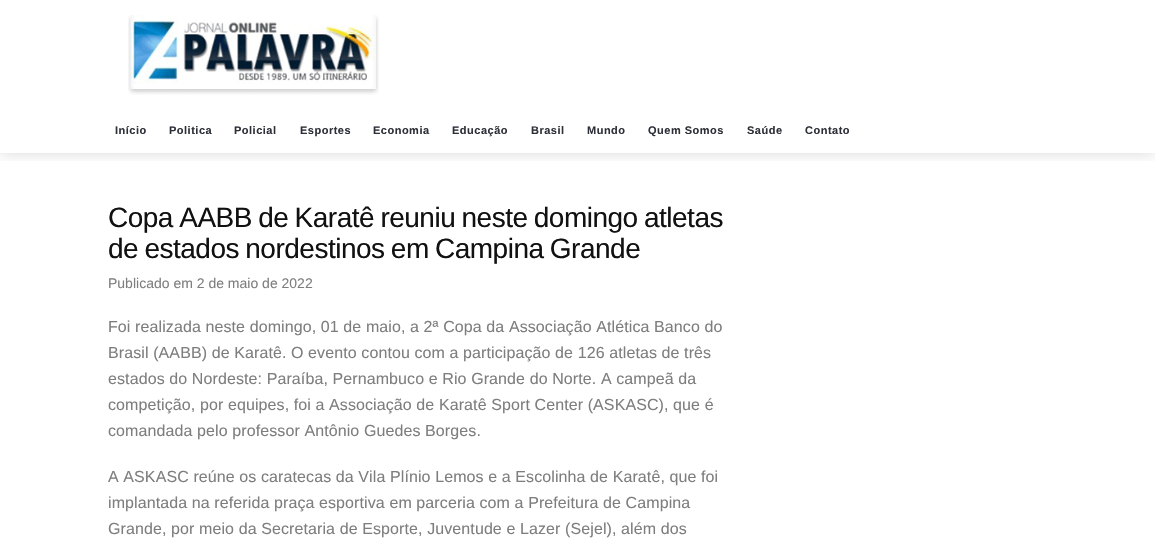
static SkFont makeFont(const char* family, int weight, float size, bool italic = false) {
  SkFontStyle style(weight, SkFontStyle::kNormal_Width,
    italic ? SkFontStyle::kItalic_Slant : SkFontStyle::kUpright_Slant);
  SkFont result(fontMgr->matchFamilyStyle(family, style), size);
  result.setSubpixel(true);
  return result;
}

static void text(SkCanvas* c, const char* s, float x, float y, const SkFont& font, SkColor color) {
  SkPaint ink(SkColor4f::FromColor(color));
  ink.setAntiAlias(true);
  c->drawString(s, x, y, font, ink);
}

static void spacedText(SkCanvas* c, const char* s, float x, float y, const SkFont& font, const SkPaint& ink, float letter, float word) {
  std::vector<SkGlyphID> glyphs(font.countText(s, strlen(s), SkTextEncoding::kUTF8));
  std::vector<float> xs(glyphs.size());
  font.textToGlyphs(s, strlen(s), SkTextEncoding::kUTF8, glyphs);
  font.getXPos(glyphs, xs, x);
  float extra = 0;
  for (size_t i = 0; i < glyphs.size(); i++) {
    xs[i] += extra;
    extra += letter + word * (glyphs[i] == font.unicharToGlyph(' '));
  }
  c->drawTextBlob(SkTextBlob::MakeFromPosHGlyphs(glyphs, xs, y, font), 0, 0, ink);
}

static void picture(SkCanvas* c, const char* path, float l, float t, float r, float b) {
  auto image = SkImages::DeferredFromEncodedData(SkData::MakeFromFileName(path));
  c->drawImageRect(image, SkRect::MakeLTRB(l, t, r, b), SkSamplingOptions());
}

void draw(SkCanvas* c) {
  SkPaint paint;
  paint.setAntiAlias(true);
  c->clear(0xffffffff);
  c->save();
  c->clipRect(SkRect::MakeLTRB(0, 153, 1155, 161));
  paint.setColor(0x26000000);
  paint.setMaskFilter(SkMaskFilter::MakeBlur(kNormal_SkBlurStyle, 7.5f));
  c->drawRect(SkRect::MakeLTRB(0, 0, 1155, 153), paint);
  paint.setMaskFilter(nullptr);
  c->restore();
  picture(c, "img_01.png", 128, 15, 379, 95);
  SkFont face1 = makeFont("Liberation Sans", 700, 11);
  paint.setColor(0xff2d3038);
  spacedText(c, "Início", 115, 134, face1, paint, 0.5f, 0);
  spacedText(c, "Politica", 169, 134, face1, paint, 0.5f, 0);
  spacedText(c, "Policial", 234, 134, face1, paint, 0.5f, 0);
  spacedText(c, "Esportes", 300, 134, face1, paint, 0.5f, 0);
  spacedText(c, "Economia", 373, 134, face1, paint, 0.5f, 0);
  spacedText(c, "Educação", 452, 134, face1, paint, 0.5f, 0);
  spacedText(c, "Brasil", 531, 134, face1, paint, 0.5f, 0);
  spacedText(c, "Mundo", 587, 134, face1, paint, 0.5f, 0);
  spacedText(c, "Quem Somos", 648, 134, face1, paint, 0.5f, 0);
  spacedText(c, "Saúde", 747, 134, face1, paint, 0.5f, 0);
  spacedText(c, "Contato", 805, 134, face1, paint, 0.5f, 0);
  SkFont face2 = makeFont("Liberation Sans", 400, 28);
  paint.setColor(0xff111111);
  spacedText(c, "Copa AABB de Karatê reuniu neste domingo atletas", 108, 227, face2, paint, -0.5f, -1);
  spacedText(c, "de estados nordestinos em Campina Grande", 108, 258, face2, paint, -0.5f, -1);
  SkFont face3 = makeFont("Liberation Sans", 400, 14);
  text(c, "Publicado em 2 de maio de 2022", 108, 288, face3, 0xff7e7e7e);
  SkFont face4 = makeFont("Liberation Sans", 400, 16);
  paint.setColor(0xff7e7e7e);
  spacedText(c, "Foi realizada neste domingo, 01 de maio, a 2ª Copa da Associação Atlética Banco do", 108, 332, face4, paint, 0.1f, 0);
  spacedText(c, "Brasil (AABB) de Karatê. O evento contou com a participação de 126 atletas de três", 108, 358, face4, paint, 0.1f, 0);
  spacedText(c, "estados do Nordeste: Paraíba, Pernambuco e Rio Grande do Norte. A campeã da", 108, 384, face4, paint, 0.1f, 0);
  spacedText(c, "competição, por equipes, foi a Associação de Karatê Sport Center (ASKASC), que é", 108, 410, face4, paint, 0.1f, 0);
  spacedText(c, "comandada pelo professor Antônio Guedes Borges.", 108, 436, face4, paint, 0.1f, 0);
  spacedText(c, "A ASKASC reúne os caratecas da Vila Plínio Lemos e a Escolinha de Karatê, que foi", 108, 482, face4, paint, 0.1f, 0);
  spacedText(c, "implantada na referida praça esportiva em parceria com a Prefeitura de Campina", 108, 508, face4, paint, 0.1f, 0);
  spacedText(c, "Grande, por meio da Secretaria de Esporte, Juventude e Lazer (Sejel), além dos", 108, 534, face4, paint, 0.1f, 0);
}
